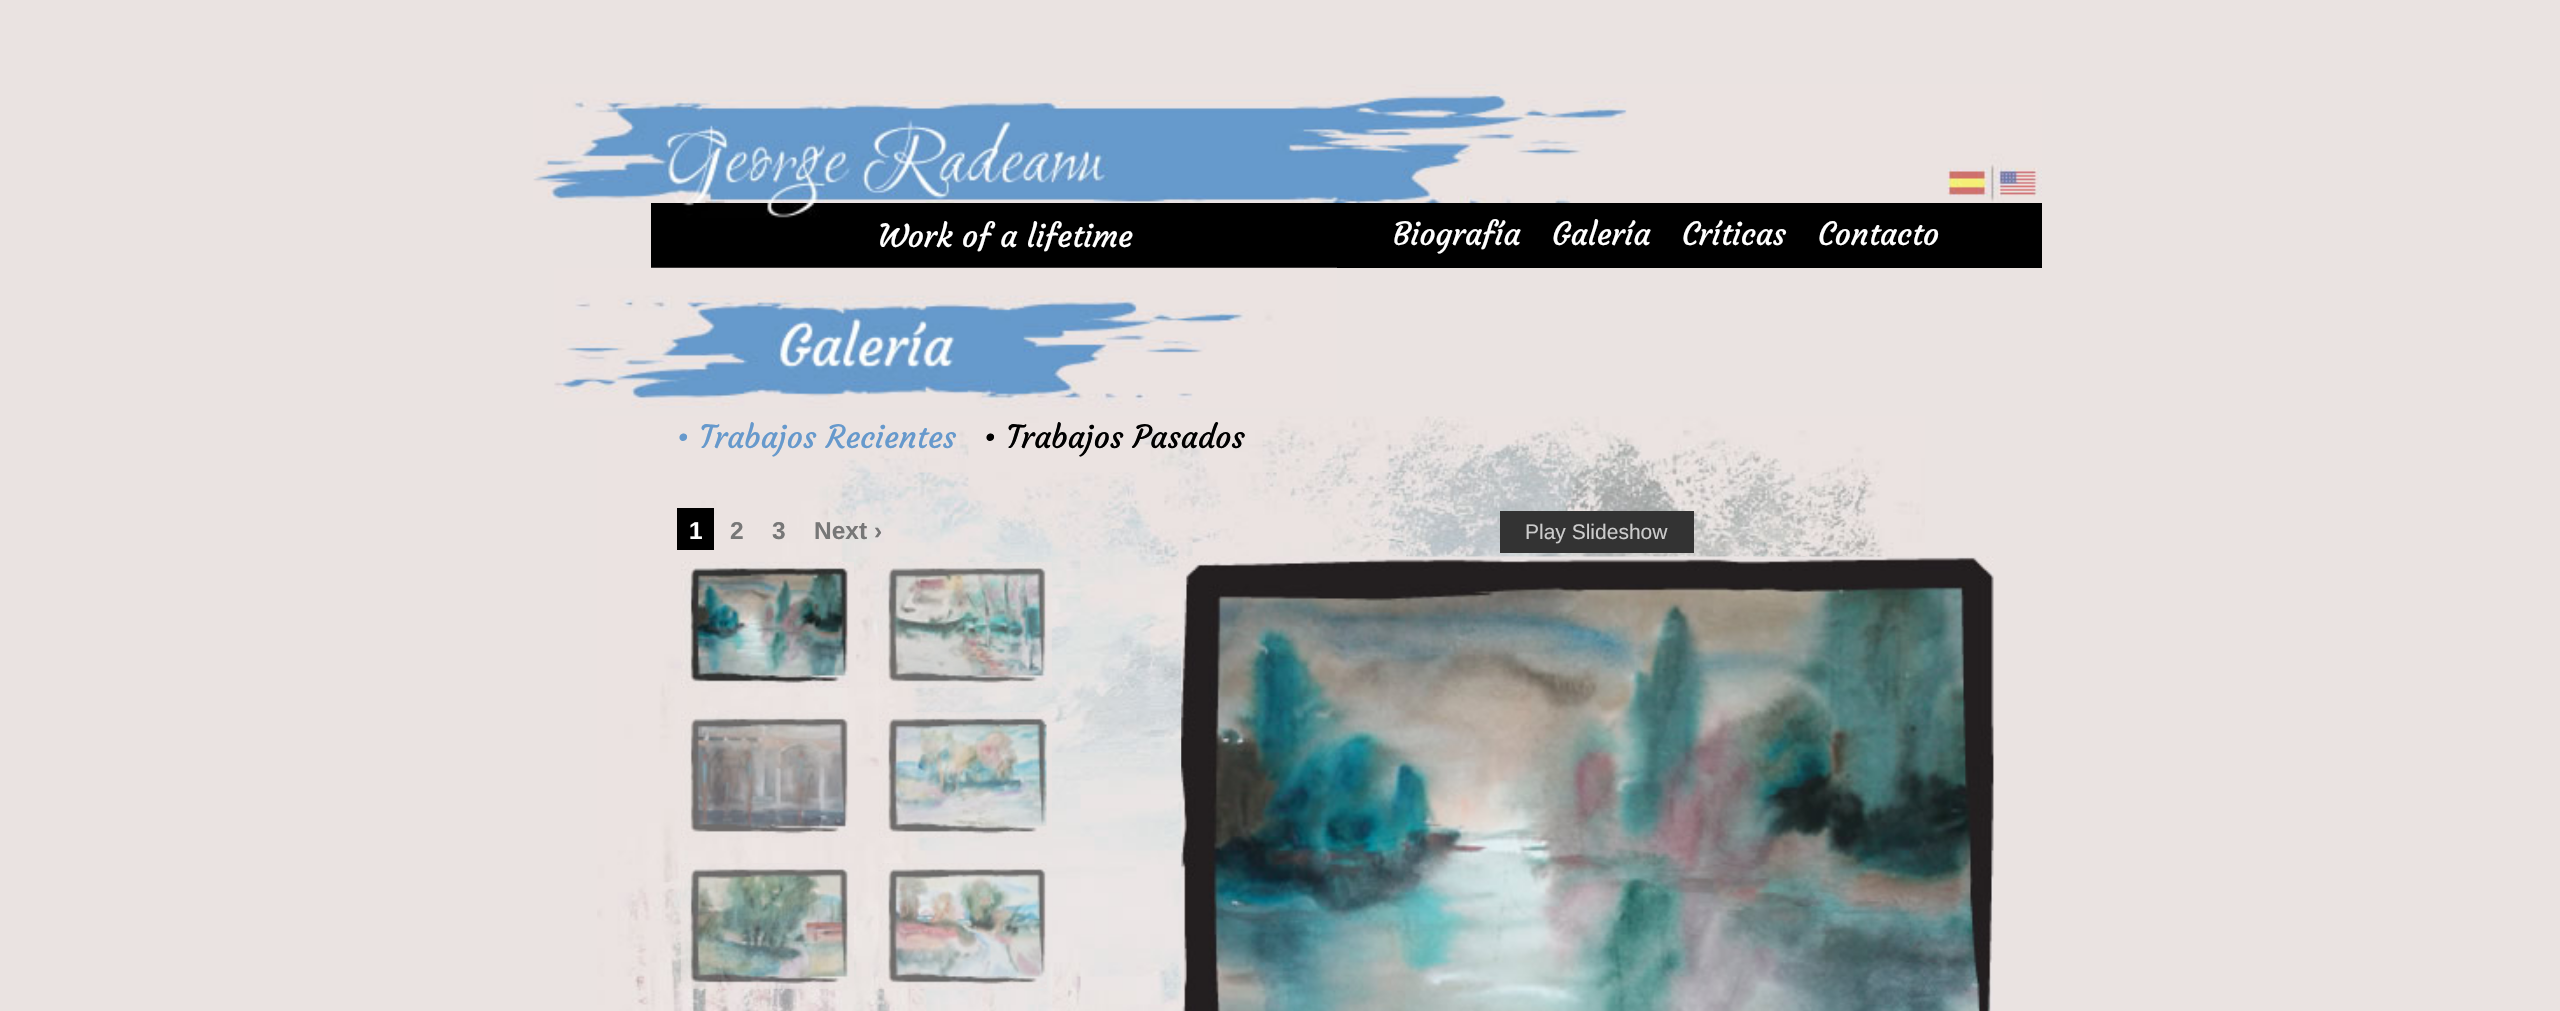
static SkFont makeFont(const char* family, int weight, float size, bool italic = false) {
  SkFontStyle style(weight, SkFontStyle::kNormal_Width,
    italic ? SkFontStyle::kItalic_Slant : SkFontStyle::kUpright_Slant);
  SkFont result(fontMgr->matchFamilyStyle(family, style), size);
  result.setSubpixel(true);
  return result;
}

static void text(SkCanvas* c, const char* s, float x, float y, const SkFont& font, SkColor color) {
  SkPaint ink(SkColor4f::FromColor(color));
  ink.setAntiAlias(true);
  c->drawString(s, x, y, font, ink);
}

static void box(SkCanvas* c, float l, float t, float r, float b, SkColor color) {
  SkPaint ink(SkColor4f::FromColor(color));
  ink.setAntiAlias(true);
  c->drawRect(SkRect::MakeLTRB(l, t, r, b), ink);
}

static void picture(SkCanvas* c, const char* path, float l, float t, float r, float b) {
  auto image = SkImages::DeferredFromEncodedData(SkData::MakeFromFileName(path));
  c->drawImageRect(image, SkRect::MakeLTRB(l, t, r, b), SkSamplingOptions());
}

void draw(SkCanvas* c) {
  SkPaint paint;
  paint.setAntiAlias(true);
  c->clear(0xffeae3e1);
  picture(c, "img_01.png", 533, 84, 2042, 203);
  box(c, 651, 203, 2042, 268, 0xff000000);
  picture(c, "img_02.png", 682, 203, 820, 218);
  SkFont face1 = makeFont("Courgette", 400, 31.5f);
  text(c, "Work of a lifetime", 878, 247, face1, 0xffffffff);
  text(c, "Biografía", 1393, 245, face1, 0xffffffff);
  text(c, "Galería", 1552, 245, face1, 0xffffffff);
  text(c, "Críticas", 1682, 245, face1, 0xffffffff);
  text(c, "Contacto", 1818, 245, face1, 0xffffffff);
  picture(c, "img_03.png", 554, 267, 1337, 408);
  picture(c, "img_04.png", 597, 416, 1925, 1011);
  text(c, "• Trabajos Recientes", 676, 448, face1, 0xff6699cc);
  text(c, "• Trabajos Pasados", 983, 448, face1, 0xff000000);
  box(c, 677, 508, 714, 550, 0xff000000);
  SkFont face2 = makeFont("Liberation Sans", 700, 24.5f);
  text(c, "1", 689, 539, face2, 0xffffffff);
  text(c, "2", 730, 539, face2, 0xff777777);
  text(c, "3", 772, 539, face2, 0xff777777);
  text(c, "Next ›", 814, 539, face2, 0xff777777);
  picture(c, "img_05.png", 681, 561, 854, 688);
  picture(c, "img_06.png", 879, 562, 1052, 688);
  picture(c, "img_07.png", 681, 712, 849, 838);
  picture(c, "img_08.png", 879, 712, 1052, 838);
  picture(c, "img_09.png", 680, 863, 854, 989);
  picture(c, "img_10.png", 878, 863, 1047, 989);
  box(c, 1500, 511, 1694, 553, 0xff333333);
  SkFont face3 = makeFont("Liberation Sans", 400, 21);
  text(c, "Play Slideshow", 1525, 539, face3, 0xffcccccc);
  picture(c, "img_11.png", 1181, 556, 1994, 1011);
}
